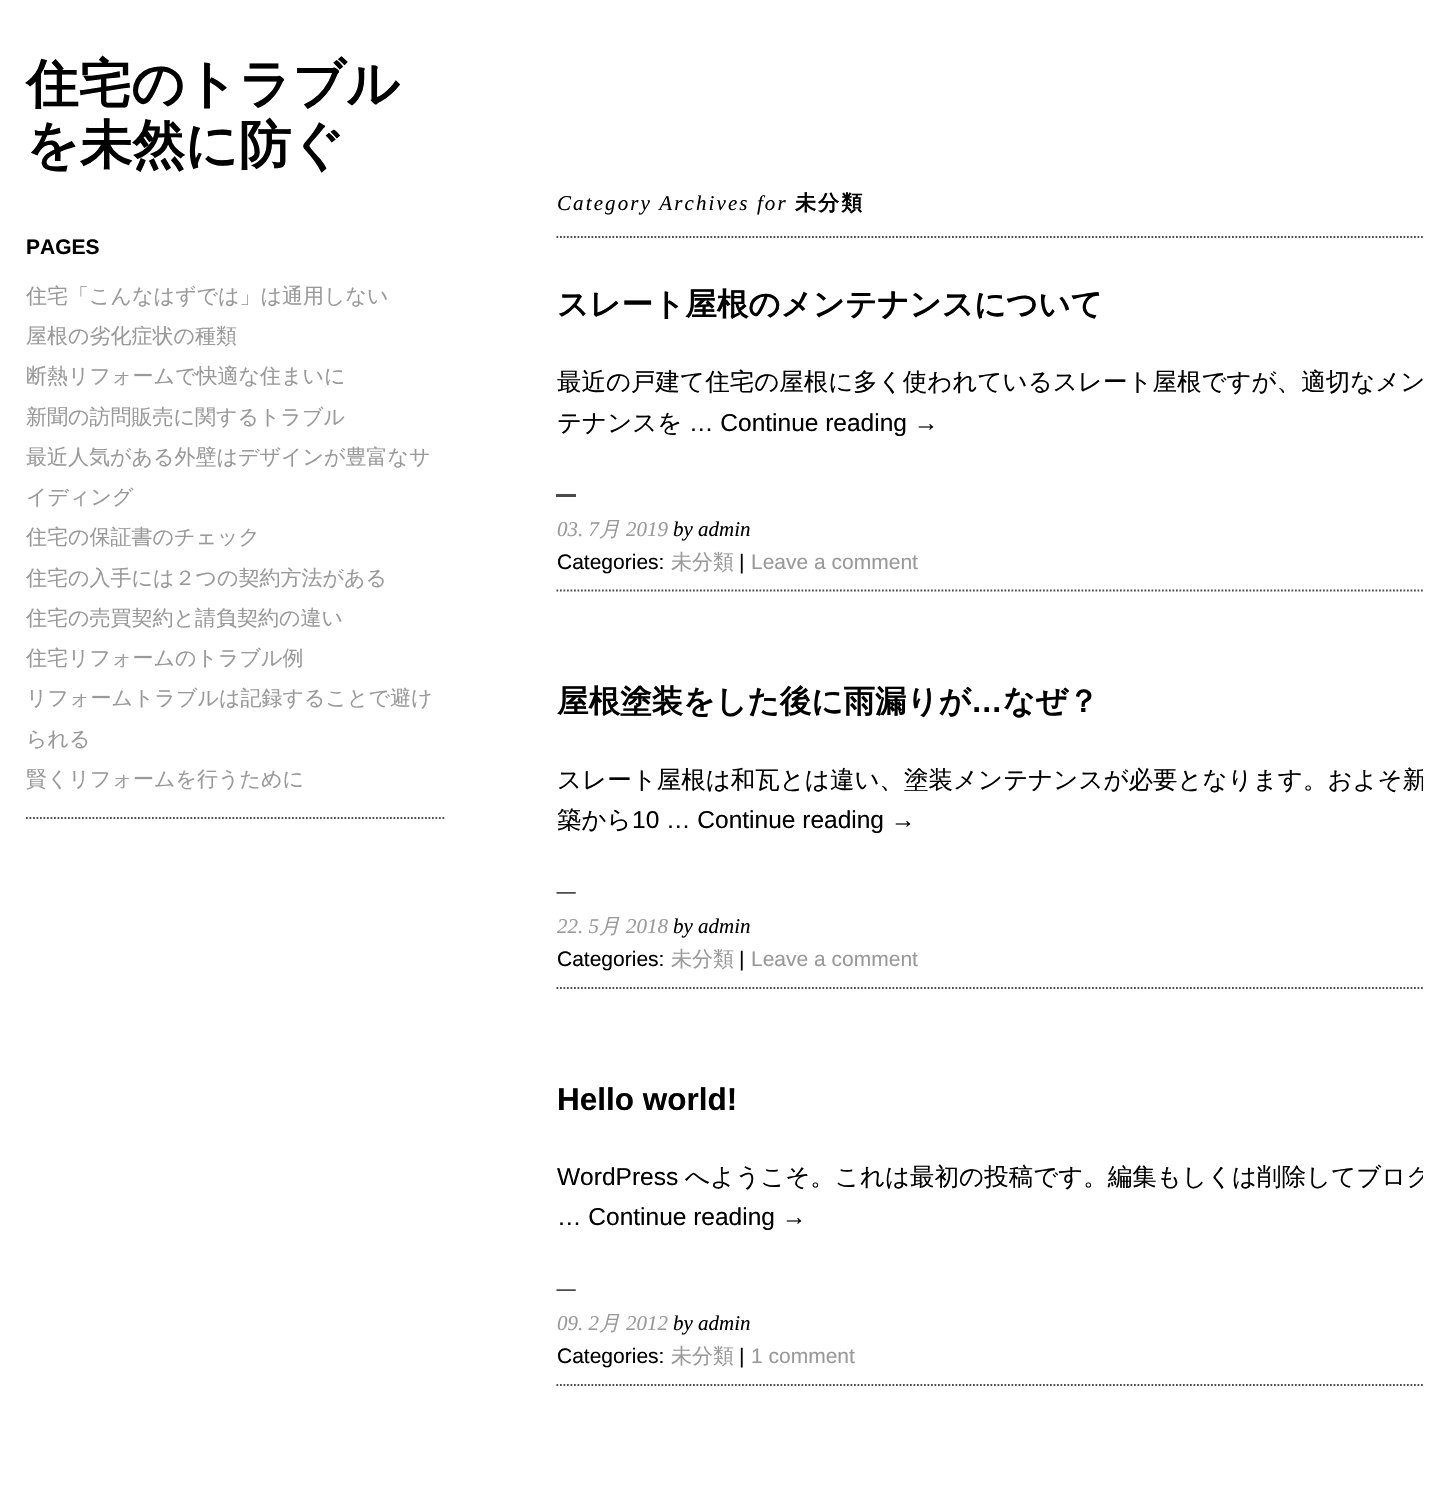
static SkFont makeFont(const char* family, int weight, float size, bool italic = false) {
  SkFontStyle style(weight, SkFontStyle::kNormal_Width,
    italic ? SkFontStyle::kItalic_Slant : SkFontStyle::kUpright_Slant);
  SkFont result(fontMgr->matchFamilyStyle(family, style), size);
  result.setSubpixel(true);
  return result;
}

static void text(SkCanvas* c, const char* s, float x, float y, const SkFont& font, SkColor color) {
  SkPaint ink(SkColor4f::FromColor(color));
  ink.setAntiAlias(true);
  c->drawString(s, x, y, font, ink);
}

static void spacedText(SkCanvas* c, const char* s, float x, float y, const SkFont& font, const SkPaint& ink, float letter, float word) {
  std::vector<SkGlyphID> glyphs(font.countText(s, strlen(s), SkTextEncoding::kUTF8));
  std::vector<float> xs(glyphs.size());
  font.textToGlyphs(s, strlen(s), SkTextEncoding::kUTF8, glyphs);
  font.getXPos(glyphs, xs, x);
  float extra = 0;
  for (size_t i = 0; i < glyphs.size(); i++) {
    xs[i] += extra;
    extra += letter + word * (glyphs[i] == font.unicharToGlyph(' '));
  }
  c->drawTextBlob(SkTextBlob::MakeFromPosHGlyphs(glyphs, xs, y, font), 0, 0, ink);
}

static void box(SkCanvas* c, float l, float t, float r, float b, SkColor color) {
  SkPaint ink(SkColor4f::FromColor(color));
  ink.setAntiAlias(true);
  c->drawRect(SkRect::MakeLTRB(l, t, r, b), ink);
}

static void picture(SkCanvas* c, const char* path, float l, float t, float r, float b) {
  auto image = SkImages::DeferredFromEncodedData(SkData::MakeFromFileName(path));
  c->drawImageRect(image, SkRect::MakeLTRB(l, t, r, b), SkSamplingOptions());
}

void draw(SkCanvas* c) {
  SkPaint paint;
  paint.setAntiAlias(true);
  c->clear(0xffffffff);
  SkFont face1 = makeFont("WenQuanYi Zen Hei", 700, 52.5f);
  text(c, "住宅のトラブル", 26, 102, face1, 0xff000000);
  text(c, "を未然に防ぐ", 26, 163, face1, 0xff000000);
  paint.setStyle(SkPaint::kStroke_Style);
  paint.setStrokeWidth(1.8f);
  paint.setColor(0xff4c4c4c);
  paint.setPathEffect(SkDashPathEffect::Make({{1.75f, 1.75f}}, 0));
  c->drawPath(SkPathBuilder().moveTo(26, 818).lineTo(446, 818).detach(), paint);
  paint.setPathEffect(nullptr);
  SkFont face2 = makeFont("Liberation Sans", 700, 21);
  text(c, "PAGES", 26, 254, face2, 0xff000000);
  SkFont face3 = makeFont("WenQuanYi Zen Hei", 500, 21);
  text(c, "住宅「こんなはずでは」は通用しない", 26, 303, face3, 0xff999999);
  text(c, "屋根の劣化症状の種類", 26, 343, face3, 0xff999999);
  text(c, "断熱リフォームで快適な住まいに", 26, 383, face3, 0xff999999);
  text(c, "新聞の訪問販売に関するトラブル", 26, 424, face3, 0xff999999);
  text(c, "最近人気がある外壁はデザインが豊富なサ", 26, 464, face3, 0xff999999);
  text(c, "イディング", 26, 504, face3, 0xff999999);
  text(c, "住宅の保証書のチェック", 26, 544, face3, 0xff999999);
  text(c, "住宅の入手には２つの契約方法がある", 26, 585, face3, 0xff999999);
  text(c, "住宅の売買契約と請負契約の違い", 26, 625, face3, 0xff999999);
  text(c, "住宅リフォームのトラブル例", 26, 665, face3, 0xff999999);
  text(c, "リフォームトラブルは記録することで避け", 26, 705, face3, 0xff999999);
  text(c, "られる", 26, 746, face3, 0xff999999);
  text(c, "賢くリフォームを行うために", 26, 786, face3, 0xff999999);
  c->save();
  c->clipRect(SkRect::MakeLTRB(417, 189, 1423, 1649));
  paint.setPathEffect(SkDashPathEffect::Make({{1.75f, 1.75f}}, 0));
  c->drawPath(SkPathBuilder().moveTo(556.5f, 237).lineTo(1433, 237).detach(), paint);
  paint.setPathEffect(nullptr);
  c->restore();
  SkFont face4 = makeFont("Liberation Serif", 400, 21, true);
  paint.setStyle(SkPaint::kFill_Style);
  paint.setColor(0xff000000);
  spacedText(c, "Category Archives for", 557, 210, face4, paint, 2.1f, 0);
  SkFont face5 = makeFont("WenQuanYi Zen Hei", 700, 21);
  spacedText(c, "未分類", 795, 210, face5, paint, 2.1f, 0);
  c->save();
  c->clipRect(SkRect::MakeLTRB(417, 189, 1423, 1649));
  paint.setStyle(SkPaint::kStroke_Style);
  paint.setColor(0xff4c4c4c);
  paint.setPathEffect(SkDashPathEffect::Make({{1.75f, 1.75f}}, 0));
  c->drawPath(SkPathBuilder().moveTo(556.5f, 590.5f).lineTo(1433, 590.5f).detach(), paint);
  paint.setPathEffect(nullptr);
  c->restore();
  SkFont face6 = makeFont("WenQuanYi Zen Hei", 700, 31.5f);
  text(c, "スレート屋根のメンテナンスについて", 557, 315, face6, 0xff000000);
  SkFont face7 = makeFont("WenQuanYi Zen Hei", 500, 24.5f);
  text(c, "最近の戸建て住宅の屋根に多く使われているスレート屋根ですが、適切なメン", 557, 390, face7, 0xff000000);
  text(c, "テナンスを", 557, 431, face7, 0xff000000);
  SkFont face8 = makeFont("Liberation Sans", 400, 24.5f);
  text(c, "… Continue reading →", 689, 431, face8, 0xff000000);
  box(c, 556, 494, 576, 497, 0xff4c4c4c);
  text(c, "03. 7", 557, 536, face4, 0xff999999);
  SkFont face9 = makeFont("WenQuanYi Zen Hei", 500, 21, true);
  text(c, "月", 599, 536, face9, 0xff999999);
  text(c, "2019", 626, 536, face4, 0xff999999);
  text(c, "by admin", 673, 536, face4, 0xff000000);
  SkFont face10 = makeFont("Liberation Sans", 400, 21);
  text(c, "Categories:", 557, 569, face10, 0xff000000);
  text(c, "未分類", 671, 569, face3, 0xff999999);
  text(c, "|", 739, 569, face10, 0xff000000);
  text(c, "Leave a comment", 751, 569, face10, 0xff999999);
  c->save();
  c->clipRect(SkRect::MakeLTRB(417, 189, 1423, 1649));
  paint.setPathEffect(SkDashPathEffect::Make({{1.75f, 1.75f}}, 0));
  c->drawPath(SkPathBuilder().moveTo(556.5f, 988).lineTo(1433, 988).detach(), paint);
  paint.setPathEffect(nullptr);
  c->restore();
  text(c, "屋根塗装をした後に雨漏りが", 557, 712, face6, 0xff000000);
  SkFont face11 = makeFont("Liberation Sans", 700, 31.5f);
  text(c, "…", 971, 712, face11, 0xff000000);
  text(c, "なぜ？", 1003, 712, face6, 0xff000000);
  c->save();
  c->clipRect(SkRect::MakeLTRB(417, 189, 1423, 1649));
  text(c, "スレート屋根は和瓦とは違い、塗装メンテナンスが必要となります。およそ新", 557, 788, face7, 0xff000000);
  c->restore();
  text(c, "築から", 557, 828, face7, 0xff000000);
  text(c, "10 … Continue reading →", 632, 828, face8, 0xff000000);
  picture(c, "img_01.png", 556, 892, 576, 894);
  text(c, "22. 5", 557, 933, face4, 0xff999999);
  text(c, "月", 599, 933, face9, 0xff999999);
  text(c, "2018", 626, 933, face4, 0xff999999);
  text(c, "by admin", 673, 933, face4, 0xff000000);
  text(c, "Categories:", 557, 966, face10, 0xff000000);
  text(c, "未分類", 671, 966, face3, 0xff999999);
  text(c, "|", 739, 966, face10, 0xff000000);
  text(c, "Leave a comment", 751, 966, face10, 0xff999999);
  c->save();
  c->clipRect(SkRect::MakeLTRB(417, 189, 1423, 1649));
  paint.setPathEffect(SkDashPathEffect::Make({{1.75f, 1.75f}}, 0));
  c->drawPath(SkPathBuilder().moveTo(556.5f, 1385).lineTo(1433, 1385).detach(), paint);
  paint.setPathEffect(nullptr);
  c->restore();
  text(c, "Hello world!", 557, 1110, face11, 0xff000000);
  text(c, "WordPress", 557, 1185, face8, 0xff000000);
  c->save();
  c->clipRect(SkRect::MakeLTRB(417, 189, 1423, 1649));
  text(c, "へようこそ。これは最初の投稿です。編集もしくは削除してブログ", 685, 1185, face7, 0xff000000);
  c->restore();
  text(c, "… Continue reading →", 557, 1225, face8, 0xff000000);
  picture(c, "img_02.png", 556, 1289, 576, 1291);
  text(c, "09. 2", 557, 1330, face4, 0xff999999);
  text(c, "月", 599, 1330, face9, 0xff999999);
  text(c, "2012", 626, 1330, face4, 0xff999999);
  text(c, "by admin", 673, 1330, face4, 0xff000000);
  text(c, "Categories:", 557, 1363, face10, 0xff000000);
  text(c, "未分類", 671, 1363, face3, 0xff999999);
  text(c, "|", 739, 1363, face10, 0xff000000);
  text(c, "1 comment", 751, 1363, face10, 0xff999999);
}
